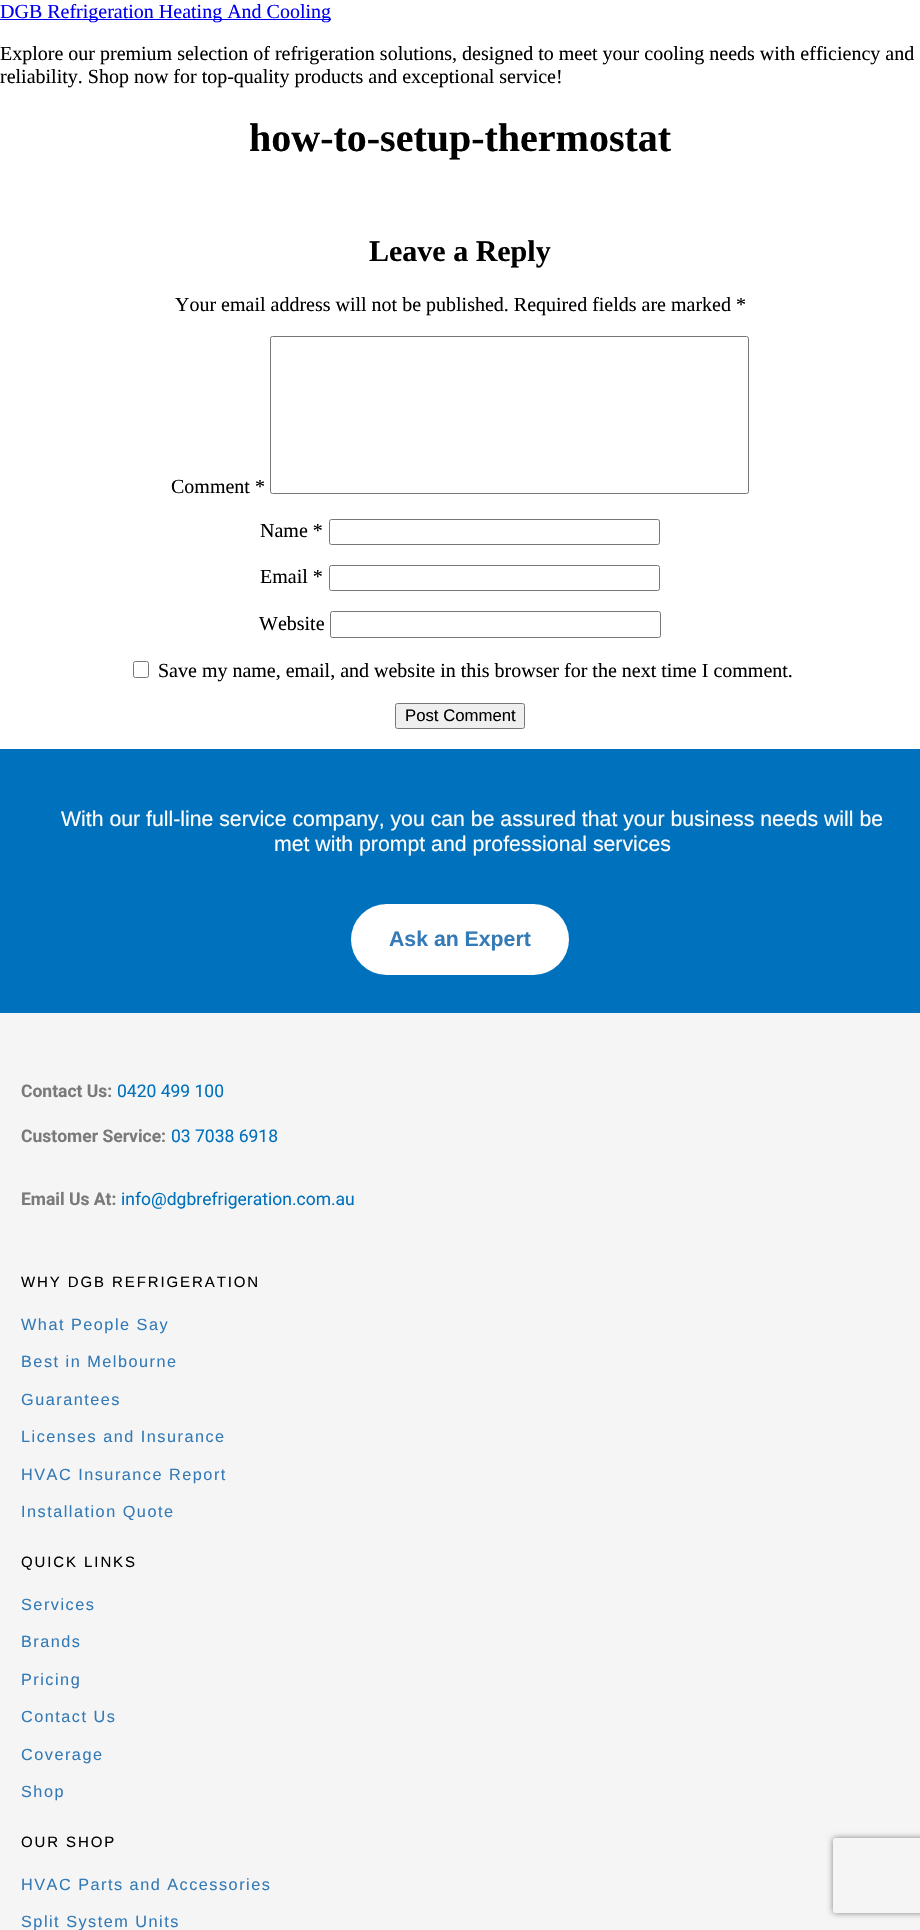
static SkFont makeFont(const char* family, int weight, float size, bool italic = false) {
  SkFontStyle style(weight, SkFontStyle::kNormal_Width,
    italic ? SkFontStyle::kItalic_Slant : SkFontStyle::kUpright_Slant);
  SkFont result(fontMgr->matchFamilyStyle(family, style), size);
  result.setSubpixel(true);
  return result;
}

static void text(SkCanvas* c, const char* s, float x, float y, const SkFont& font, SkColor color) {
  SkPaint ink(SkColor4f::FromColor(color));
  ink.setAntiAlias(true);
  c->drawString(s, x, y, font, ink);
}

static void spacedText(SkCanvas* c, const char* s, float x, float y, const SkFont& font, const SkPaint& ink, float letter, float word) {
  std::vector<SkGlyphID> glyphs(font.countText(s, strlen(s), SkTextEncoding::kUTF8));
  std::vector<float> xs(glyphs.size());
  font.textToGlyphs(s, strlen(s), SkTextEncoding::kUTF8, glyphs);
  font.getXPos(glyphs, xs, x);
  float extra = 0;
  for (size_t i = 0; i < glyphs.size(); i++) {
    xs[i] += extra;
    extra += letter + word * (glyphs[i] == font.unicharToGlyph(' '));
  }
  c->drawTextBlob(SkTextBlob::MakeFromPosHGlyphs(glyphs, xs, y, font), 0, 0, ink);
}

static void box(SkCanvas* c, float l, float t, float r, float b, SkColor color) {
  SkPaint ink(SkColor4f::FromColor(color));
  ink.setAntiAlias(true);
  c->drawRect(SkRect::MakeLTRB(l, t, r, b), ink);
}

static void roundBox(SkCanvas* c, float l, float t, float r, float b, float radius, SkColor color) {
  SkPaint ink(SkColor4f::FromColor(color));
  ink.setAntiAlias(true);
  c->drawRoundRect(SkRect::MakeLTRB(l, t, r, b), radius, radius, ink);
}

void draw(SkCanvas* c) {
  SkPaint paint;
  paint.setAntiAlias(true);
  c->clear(0xffffffff);
  box(c, 0, 19, 331, 20, 0xff0000ee);
  SkFont face1 = makeFont("Liberation Serif", 400, 20);
  text(c, "DGB Refrigeration Heating And Cooling", 0, 18, face1, 0xff0000ee);
  text(c, "Explore our premium selection of refrigeration solutions, designed to meet your cooling needs with efficiency and", 0, 60, face1, 0xff000000);
  text(c, "reliability. Shop now for top-quality products and exceptional service!", 0, 83, face1, 0xff000000);
  SkFont face2 = makeFont("Liberation Serif", 700, 40);
  text(c, "how-to-setup-thermostat", 249, 151, face2, 0xff000000);
  SkFont face3 = makeFont("Liberation Serif", 700, 30);
  text(c, "Leave a Reply", 369, 261, face3, 0xff000000);
  text(c, "Your email address will not be published. Required fields are marked *", 175, 311, face1, 0xff000000);
  text(c, "Comment *", 171, 493, face1, 0xff000000);
  paint.setStyle(SkPaint::kStroke_Style);
  paint.setStrokeWidth(1);
  paint.setColor(0xff767676);
  c->drawRoundRect(SkRect::MakeLTRB(270.5f, 336.5f, 748.5f, 493.5f), 2, 2, paint);
  text(c, "Name *", 260, 537, face1, 0xff000000);
  c->drawRoundRect(SkRect::MakeLTRB(329.5f, 519.5f, 659.5f, 544.5f), 2, 2, paint);
  text(c, "Email *", 260, 583, face1, 0xff000000);
  c->drawRoundRect(SkRect::MakeLTRB(329.5f, 565.5f, 659.5f, 590.5f), 2, 2, paint);
  text(c, "Website", 259, 630, face1, 0xff000000);
  c->drawRoundRect(SkRect::MakeLTRB(330.5f, 611.5f, 660.5f, 637.5f), 2, 2, paint);
  c->drawRoundRect(SkRect::MakeLTRB(133.5f, 661.5f, 148.5f, 677.5f), 2, 2, paint);
  text(c, "Save my name, email, and website in this browser for the next time I comment.", 158, 677, face1, 0xff000000);
  paint.setStyle(SkPaint::kFill_Style);
  paint.setColor(0xffefefef);
  c->drawRoundRect(SkRect::MakeLTRB(395.5f, 703.5f, 524.5f, 728.5f), 2, 2, paint);
  paint.setStyle(SkPaint::kStroke_Style);
  paint.setColor(0xff767676);
  c->drawRoundRect(SkRect::MakeLTRB(395.5f, 703.5f, 524.5f, 728.5f), 2, 2, paint);
  SkFont face4 = makeFont("Liberation Sans", 400, 16.75f);
  text(c, "Post Comment", 405, 721, face4, 0xff000000);
  box(c, 0, 749, 920, 1013, 0xff0071bd);
  SkFont face5 = makeFont("Liberation Sans", 400, 21.25f);
  text(c, "With our full-line service company, you can be assured that your business needs will be", 61, 826, face5, 0xffffffff);
  text(c, "met with prompt and professional services", 274, 851, face5, 0xffffffff);
  roundBox(c, 351, 904, 569, 975, 35.5f, 0xffffffff);
  SkFont face6 = makeFont("Liberation Sans", 700, 21.25f);
  text(c, "Ask an Expert", 389, 946, face6, 0xff337ab7);
  box(c, 0, 1013, 920, 1930, 0xfff5f5f5);
  SkFont face7 = makeFont("Roboto", 700, 17.5f);
  text(c, "Contact Us:", 21, 1097, face7, 0xff7a7a7a);
  SkFont face8 = makeFont("Roboto", 400, 17.5f);
  text(c, "0420 499 100", 117, 1097, face8, 0xff0071bd);
  text(c, "Customer Service:", 21, 1142, face7, 0xff7a7a7a);
  text(c, "03 7038 6918", 171, 1142, face8, 0xff0071bd);
  text(c, "Email Us At:", 21, 1205, face7, 0xff7a7a7a);
  text(c, "info@dgbrefrigeration.com.au", 121, 1205, face8, 0xff0071bd);
  SkFont face9 = makeFont("Liberation Sans", 400, 15);
  paint.setStyle(SkPaint::kFill_Style);
  paint.setColor(0xff000000);
  spacedText(c, "WHY DGB REFRIGERATION", 21, 1287, face9, paint, 1.9f, 0);
  SkFont face10 = makeFont("Liberation Sans", 400, 16.25f);
  paint.setColor(0xff337ab7);
  spacedText(c, "What People Say", 21, 1330, face10, paint, 1.5f, 0);
  spacedText(c, "Best in Melbourne", 21, 1367, face10, paint, 1.5f, 0);
  spacedText(c, "Guarantees", 21, 1405, face10, paint, 1.5f, 0);
  spacedText(c, "Licenses and Insurance", 21, 1442, face10, paint, 1.5f, 0);
  spacedText(c, "HVAC Insurance Report", 21, 1480, face10, paint, 1.5f, 0);
  spacedText(c, "Installation Quote", 21, 1517, face10, paint, 1.5f, 0);
  paint.setColor(0xff000000);
  spacedText(c, "QUICK LINKS", 21, 1567, face9, paint, 1.9f, 0);
  paint.setColor(0xff337ab7);
  spacedText(c, "Services", 21, 1610, face10, paint, 1.5f, 0);
  spacedText(c, "Brands", 21, 1647, face10, paint, 1.5f, 0);
  spacedText(c, "Pricing", 21, 1685, face10, paint, 1.5f, 0);
  spacedText(c, "Contact Us", 21, 1722, face10, paint, 1.5f, 0);
  spacedText(c, "Coverage", 21, 1760, face10, paint, 1.5f, 0);
  spacedText(c, "Shop", 21, 1797, face10, paint, 1.5f, 0);
  paint.setColor(0xff000000);
  spacedText(c, "OUR SHOP", 21, 1847, face9, paint, 1.9f, 0);
  paint.setColor(0xff337ab7);
  spacedText(c, "HVAC Parts and Accessories", 21, 1890, face10, paint, 1.5f, 0);
  spacedText(c, "Split System Units", 21, 1927, face10, paint, 1.5f, 0);
  c->save();
  c->clipPath(SkPathBuilder(SkPathFillType::kEvenOdd).moveTo(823, 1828).lineTo(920, 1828).lineTo(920, 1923).lineTo(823, 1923).close().moveTo(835.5f, 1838).lineTo(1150.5f, 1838).cubicTo(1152, 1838, 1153, 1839, 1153, 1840.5f).lineTo(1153, 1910.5f).cubicTo(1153, 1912, 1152, 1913, 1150.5f, 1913).lineTo(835.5f, 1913).cubicTo(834, 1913, 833, 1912, 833, 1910.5f).lineTo(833, 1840.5f).cubicTo(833, 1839, 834, 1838, 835.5f, 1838).close().detach(), true);
  paint.setColor(0xff808080);
  paint.setMaskFilter(SkMaskFilter::MakeBlur(kNormal_SkBlurStyle, 3));
  c->drawRoundRect(SkRect::MakeLTRB(833, 1838, 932, 1913), 2.5f, 2.5f, paint);
  paint.setMaskFilter(nullptr);
  c->restore();
}
